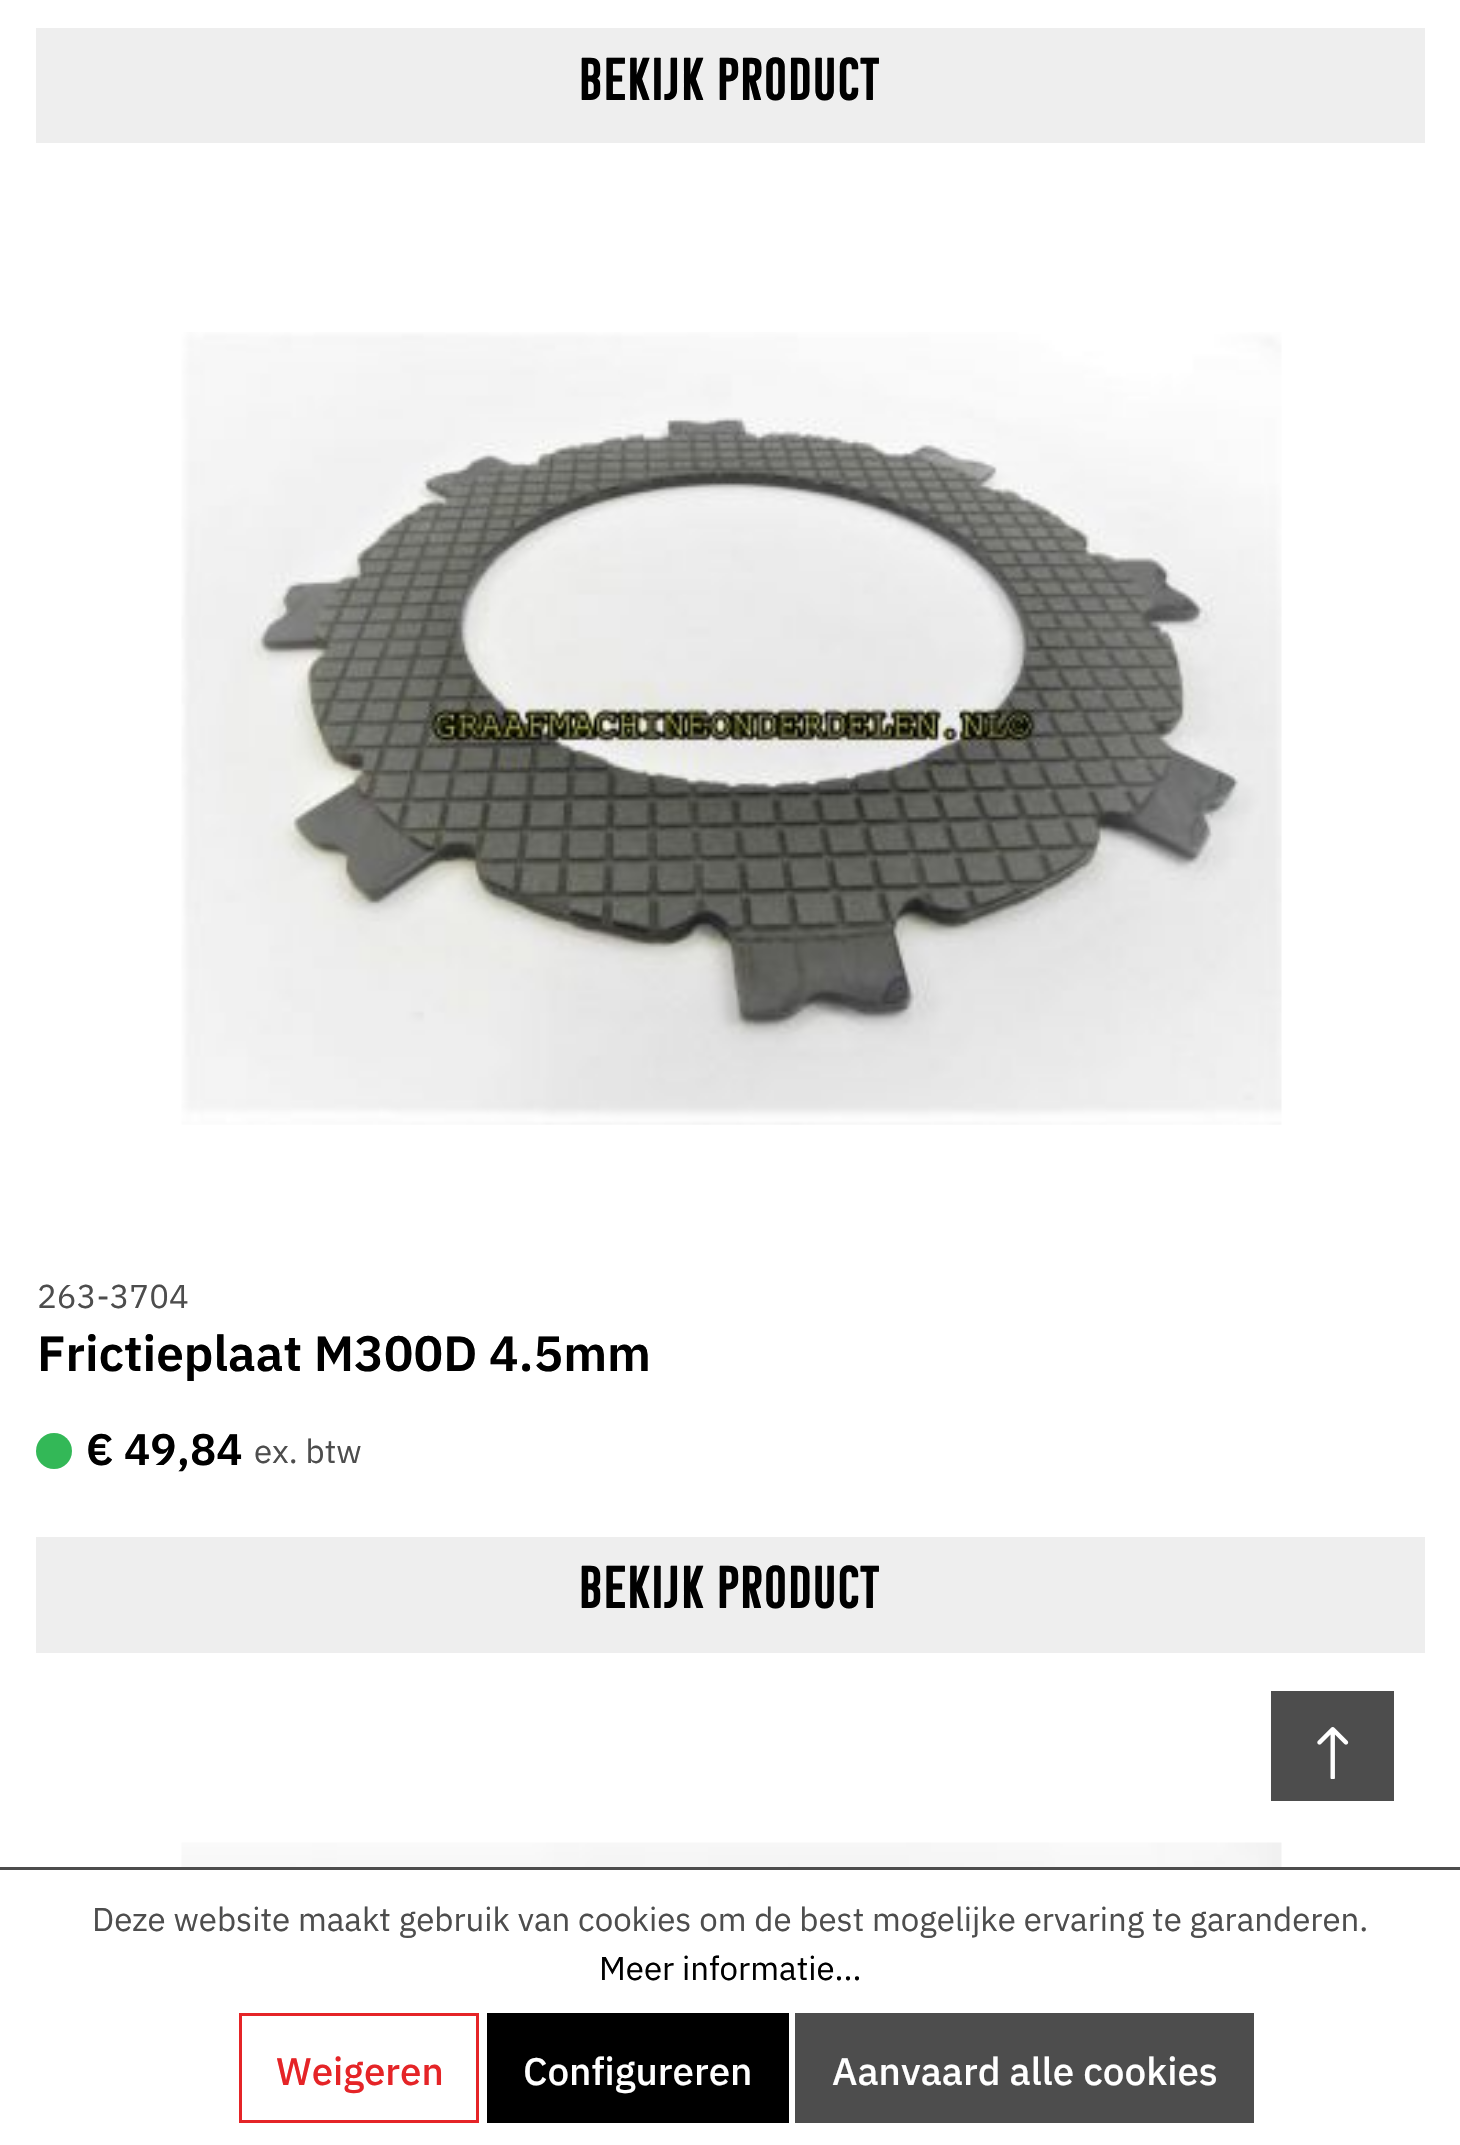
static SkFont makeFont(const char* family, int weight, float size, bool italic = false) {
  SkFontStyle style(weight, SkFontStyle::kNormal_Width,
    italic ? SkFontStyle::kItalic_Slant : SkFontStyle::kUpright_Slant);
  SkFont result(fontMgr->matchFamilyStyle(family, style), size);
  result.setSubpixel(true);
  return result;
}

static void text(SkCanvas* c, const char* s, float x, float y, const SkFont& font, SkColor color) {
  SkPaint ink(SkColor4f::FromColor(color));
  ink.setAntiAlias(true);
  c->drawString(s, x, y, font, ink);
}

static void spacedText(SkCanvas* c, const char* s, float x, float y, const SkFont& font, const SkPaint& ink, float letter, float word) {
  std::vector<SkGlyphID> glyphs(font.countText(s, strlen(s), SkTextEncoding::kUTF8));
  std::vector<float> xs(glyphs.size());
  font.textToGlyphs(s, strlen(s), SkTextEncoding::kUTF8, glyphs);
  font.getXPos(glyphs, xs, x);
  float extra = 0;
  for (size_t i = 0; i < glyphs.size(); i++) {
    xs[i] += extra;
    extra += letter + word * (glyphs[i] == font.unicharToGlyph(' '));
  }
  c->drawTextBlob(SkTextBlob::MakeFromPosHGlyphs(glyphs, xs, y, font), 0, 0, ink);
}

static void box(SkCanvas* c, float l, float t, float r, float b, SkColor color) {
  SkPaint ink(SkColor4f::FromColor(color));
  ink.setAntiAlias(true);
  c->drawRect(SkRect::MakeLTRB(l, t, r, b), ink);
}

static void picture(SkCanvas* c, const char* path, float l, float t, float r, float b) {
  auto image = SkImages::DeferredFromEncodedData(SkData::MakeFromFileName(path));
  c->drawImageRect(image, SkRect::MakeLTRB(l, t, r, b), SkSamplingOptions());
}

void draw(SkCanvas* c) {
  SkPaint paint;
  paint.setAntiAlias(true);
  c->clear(0xffffffff);
  box(c, 36, 28, 1425, 143, 0xffeeeeee);
  SkFont face1 = makeFont("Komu", 400, 60.5f);
  paint.setColor(0xff000000);
  spacedText(c, "BEKIJK PRODUCT", 579, 100, face1, paint, 1.75f, 0);
  picture(c, "img_01.png", 181, 332, 1282, 1125);
  SkFont face2 = makeFont("IBM Plex Sans", 400, 33);
  text(c, "263-3704", 37, 1308, face2, 0xff4d4d4d);
  SkFont face3 = makeFont("IBM Plex Sans", 600, 49.5f);
  text(c, "Frictieplaat M300D 4.5mm", 37, 1371, face3, 0xff000000);
  paint.setColor(0xff33b857);
  c->drawCircle(54, 1451, 18, paint);
  SkFont face4 = makeFont("IBM Plex Sans", 600, 44);
  text(c, "€ 49,84", 86, 1465, face4, 0xff000000);
  text(c, "ex. btw", 254, 1463, face2, 0xff4d4d4d);
  box(c, 36, 1537, 1425, 1653, 0xffeeeeee);
  paint.setColor(0xff000000);
  spacedText(c, "BEKIJK PRODUCT", 579, 1608, face1, paint, 1.75f, 0);
  picture(c, "img_02.png", 181, 1842, 1282, 1867);
  box(c, 1271, 1691, 1394, 1801, 0xff4d4d4d);
  picture(c, "img_03.png", 1317, 1727, 1349, 1779);
  box(c, 0, 1867, 1460, 1870, 0xff4d4d4d);
  text(c, "Deze website maakt gebruik van cookies om de best mogelijke ervaring te garanderen.", 92, 1931, face2, 0xff4d4d4d);
  text(c, "Meer informatie...", 599, 1980, face2, 0xff000000);
  paint.setStyle(SkPaint::kStroke_Style);
  paint.setStrokeWidth(3);
  paint.setColor(0xffe52427);
  c->drawRect(SkRect::MakeLTRB(240.5f, 2014.5f, 477.5f, 2121.5f), paint);
  SkFont face5 = makeFont("IBM Plex Sans", 500, 38.5f);
  text(c, "Weigeren", 276, 2085, face5, 0xffe52427);
  box(c, 487, 2013, 789, 2123, 0xff000000);
  text(c, "Configureren", 523, 2085, face5, 0xffffffff);
  box(c, 795, 2013, 1254, 2123, 0xff4d4d4d);
  text(c, "Aanvaard alle cookies", 832, 2085, face5, 0xffffffff);
}
